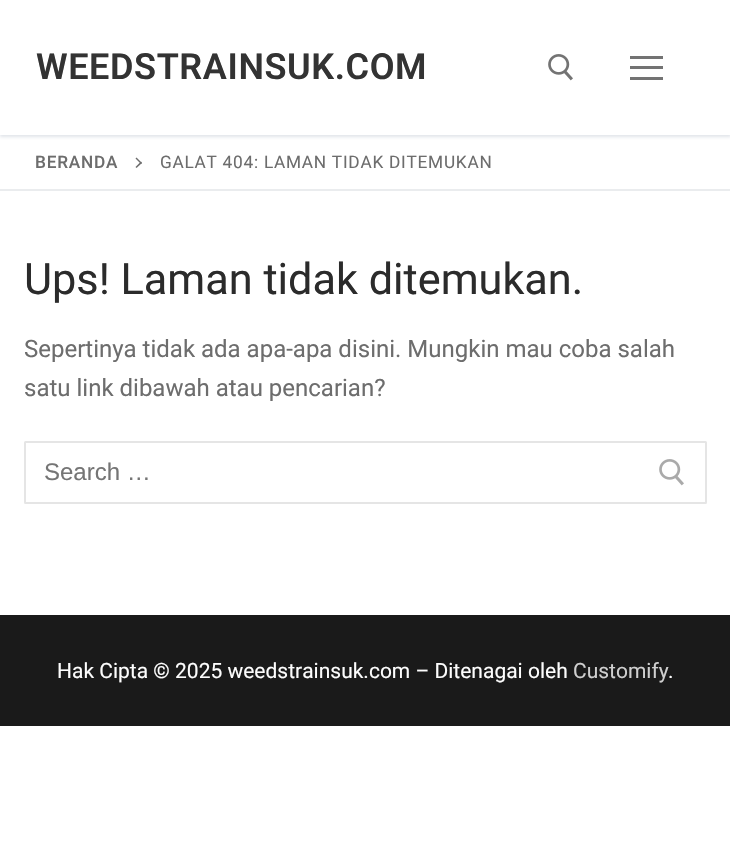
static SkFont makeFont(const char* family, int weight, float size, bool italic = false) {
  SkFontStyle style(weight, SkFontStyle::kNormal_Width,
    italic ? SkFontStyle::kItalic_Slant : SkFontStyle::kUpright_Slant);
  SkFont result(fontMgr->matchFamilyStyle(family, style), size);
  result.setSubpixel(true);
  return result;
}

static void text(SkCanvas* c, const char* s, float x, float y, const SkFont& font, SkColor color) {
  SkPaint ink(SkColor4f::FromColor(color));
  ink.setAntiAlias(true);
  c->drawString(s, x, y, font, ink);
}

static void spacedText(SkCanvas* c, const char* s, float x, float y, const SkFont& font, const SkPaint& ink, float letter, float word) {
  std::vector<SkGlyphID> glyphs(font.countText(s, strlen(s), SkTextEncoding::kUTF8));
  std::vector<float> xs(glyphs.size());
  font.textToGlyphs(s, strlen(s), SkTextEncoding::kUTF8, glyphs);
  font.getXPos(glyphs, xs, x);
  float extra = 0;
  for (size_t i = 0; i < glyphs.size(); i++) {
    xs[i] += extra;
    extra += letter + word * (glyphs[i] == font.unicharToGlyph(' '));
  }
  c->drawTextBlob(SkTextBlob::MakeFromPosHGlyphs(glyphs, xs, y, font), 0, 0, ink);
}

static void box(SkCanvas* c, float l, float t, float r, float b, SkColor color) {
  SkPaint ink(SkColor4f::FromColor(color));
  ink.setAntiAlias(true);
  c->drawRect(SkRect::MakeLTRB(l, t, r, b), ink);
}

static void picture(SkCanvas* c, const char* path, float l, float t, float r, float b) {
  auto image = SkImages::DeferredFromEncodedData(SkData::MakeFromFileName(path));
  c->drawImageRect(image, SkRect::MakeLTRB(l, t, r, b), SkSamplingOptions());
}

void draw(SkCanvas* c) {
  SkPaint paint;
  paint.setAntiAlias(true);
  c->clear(0xffffffff);
  c->save();
  c->clipRect(SkRect::MakeLTRB(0, 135, 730, 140));
  paint.setColor(0xffe1e5ea);
  paint.setMaskFilter(SkMaskFilter::MakeBlur(kNormal_SkBlurStyle, 1.5f));
  c->drawRect(SkRect::MakeLTRB(0, 2, 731, 137), paint);
  paint.setMaskFilter(nullptr);
  c->restore();
  SkFont face1 = makeFont("Roboto", 600, 36);
  paint.setColor(0xff333333);
  spacedText(c, "WEEDSTRAINSUK.COM", 36, 79, face1, paint, 0.6f, 0);
  picture(c, "img_01.png", 548, 54, 573, 81);
  box(c, 630, 66, 663, 69, 0xff737373);
  box(c, 630, 56, 663, 59, 0xff737373);
  box(c, 630, 77, 663, 80, 0xff737373);
  box(c, 0, 189, 730, 191, 0xffeaecee);
  SkFont face2 = makeFont("Roboto", 500, 17.25f);
  paint.setColor(0xff6d6d6d);
  spacedText(c, "BERANDA", 35, 168, face2, paint, 0.75f, 0);
  c->drawPath(SkPathBuilder().moveTo(142, 163).lineTo(136.5f, 168).lineTo(135.5f, 167).lineTo(141, 161.5f).close().detach(), paint);
  c->drawPath(SkPathBuilder().moveTo(142, 163).lineTo(141, 164).lineTo(135.5f, 158.5f).lineTo(136.5f, 157.5f).close().detach(), paint);
  SkFont face3 = makeFont("Roboto", 400, 17.25f);
  spacedText(c, "GALAT 404: LAMAN TIDAK DITEMUKAN", 160, 168, face3, paint, 0.75f, 0);
  SkFont face4 = makeFont("Roboto", 400, 43.25f);
  text(c, "Ups! Laman tidak ditemukan.", 24, 294, face4, 0xff2b2b2b);
  SkFont face5 = makeFont("Roboto", 400, 24);
  text(c, "Sepertinya tidak ada apa-apa disini. Mungkin mau coba salah", 24, 357, face5, 0xff6d6d6d);
  text(c, "satu link dibawah atau pencarian?", 24, 396, face5, 0xff6d6d6d);
  paint.setStyle(SkPaint::kStroke_Style);
  paint.setStrokeWidth(2);
  paint.setColor(0xffe5e5e5);
  c->drawRoundRect(SkRect::MakeLTRB(25, 442, 706, 503), 0.5f, 0.5f, paint);
  SkFont face6 = makeFont("Liberation Sans", 400, 24);
  text(c, "Search …", 44, 480, face6, 0xff757575);
  picture(c, "img_02.png", 659, 459, 684, 486);
  box(c, 0, 615, 730, 726, 0xff1a1a1a);
  SkFont face7 = makeFont("Roboto", 400, 21);
  text(c, "Hak Cipta © 2025 weedstrainsuk.com – Ditenagai oleh", 57, 678, face7, 0xfffdfdfd);
  text(c, "Customify", 573, 678, face7, 0xffcfcfcf);
  text(c, ".", 668, 678, face7, 0xfffdfdfd);
}
